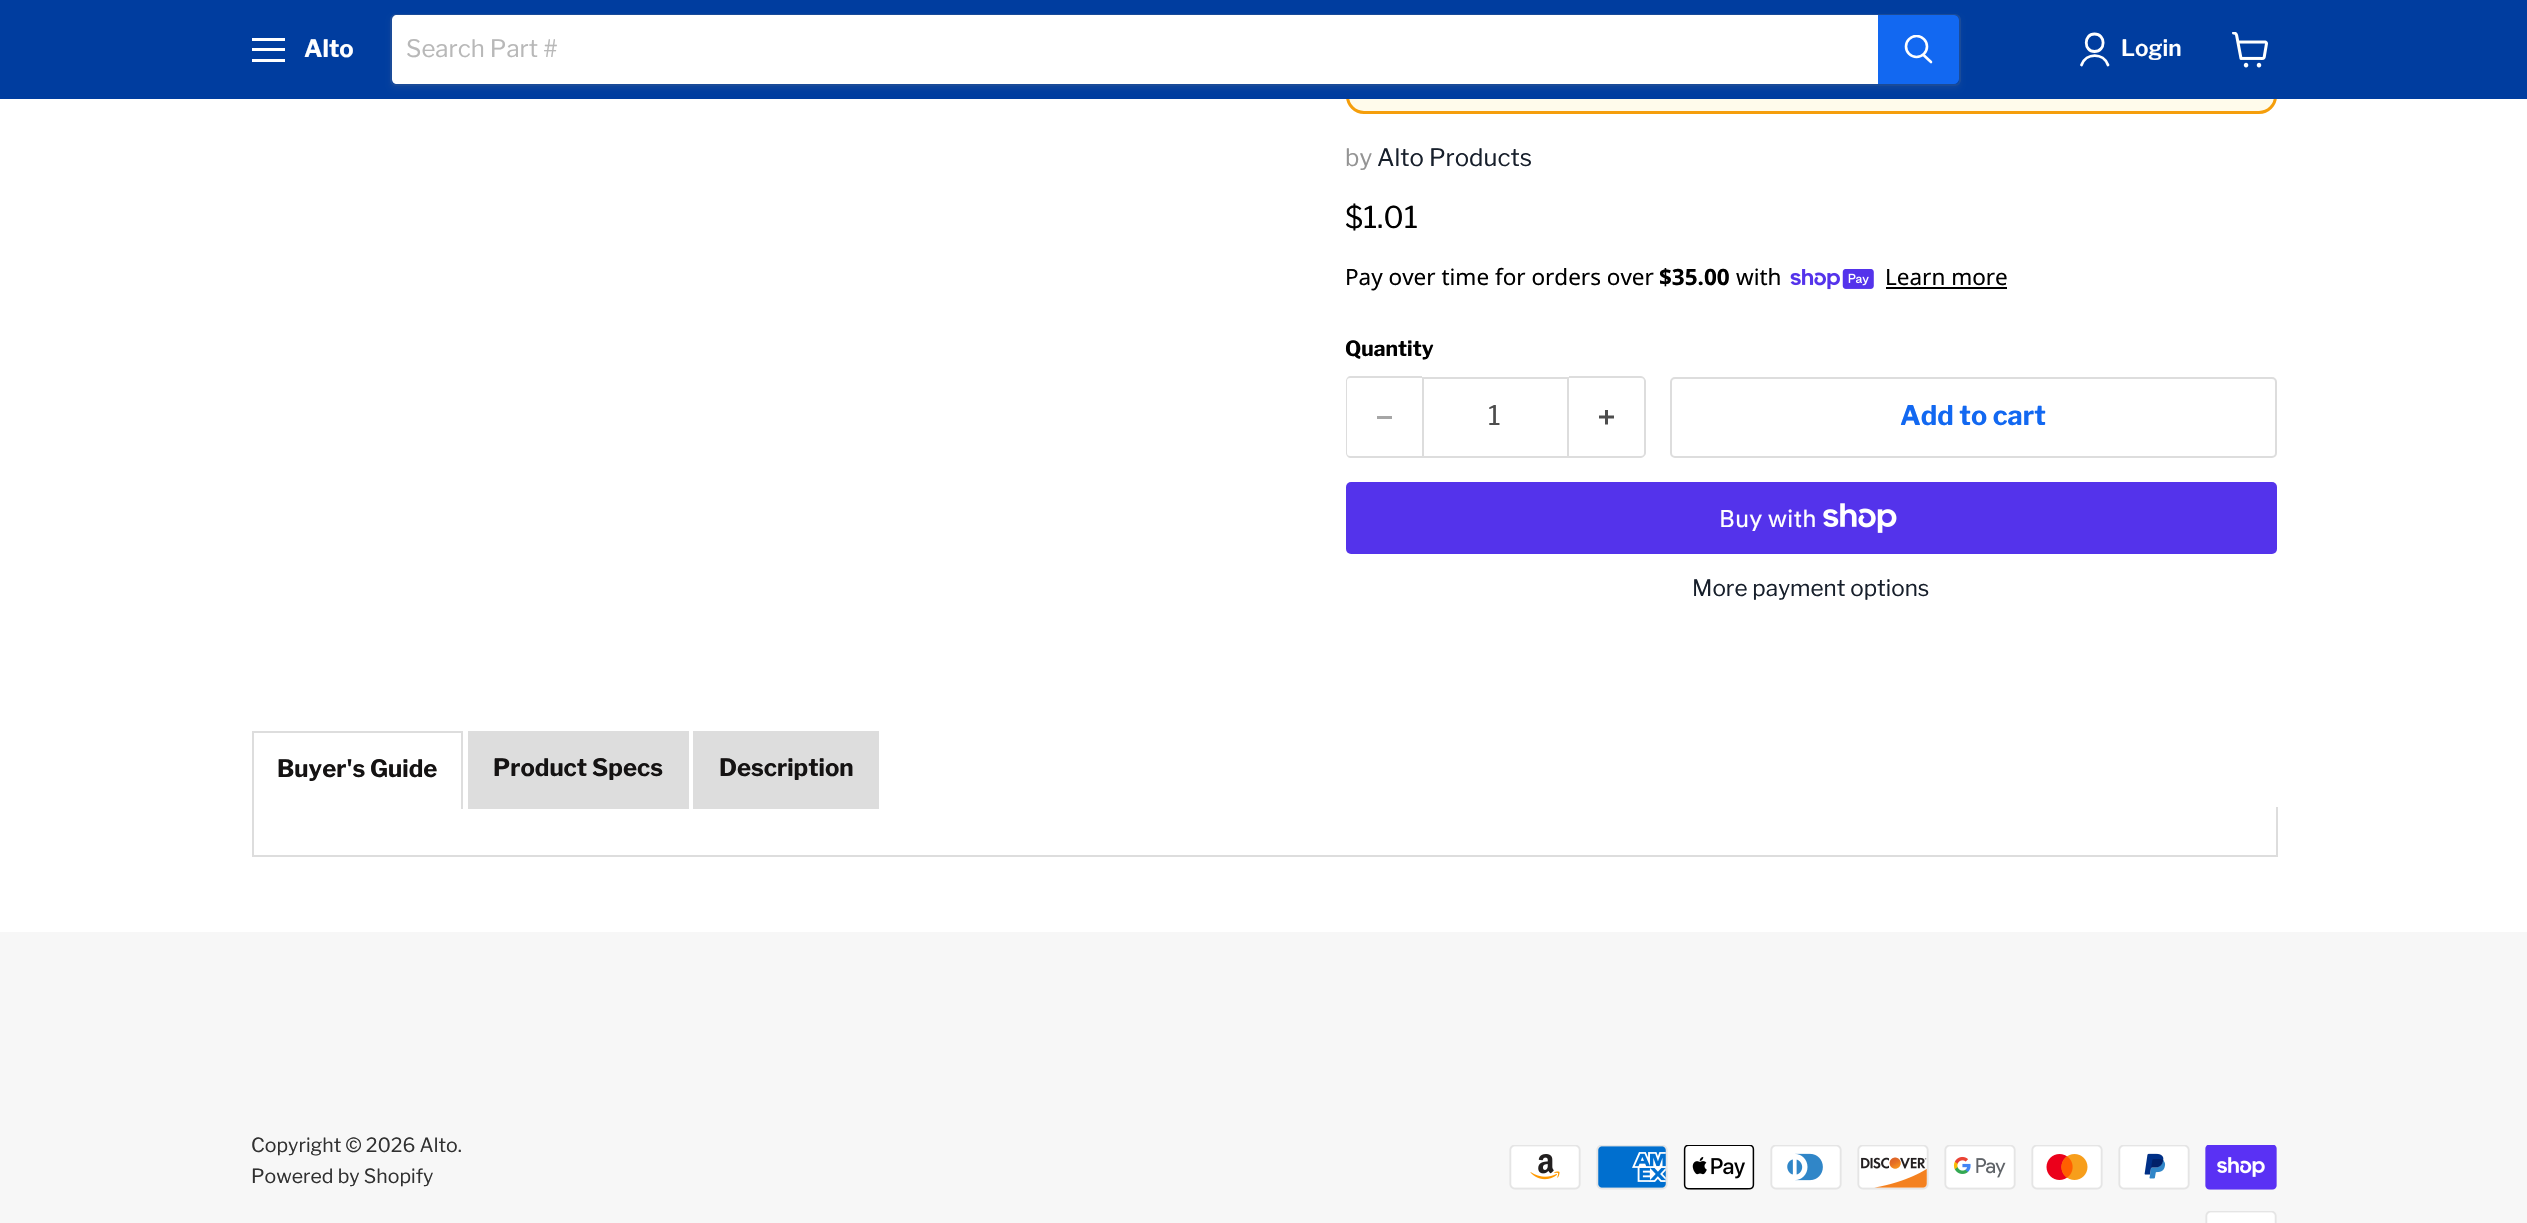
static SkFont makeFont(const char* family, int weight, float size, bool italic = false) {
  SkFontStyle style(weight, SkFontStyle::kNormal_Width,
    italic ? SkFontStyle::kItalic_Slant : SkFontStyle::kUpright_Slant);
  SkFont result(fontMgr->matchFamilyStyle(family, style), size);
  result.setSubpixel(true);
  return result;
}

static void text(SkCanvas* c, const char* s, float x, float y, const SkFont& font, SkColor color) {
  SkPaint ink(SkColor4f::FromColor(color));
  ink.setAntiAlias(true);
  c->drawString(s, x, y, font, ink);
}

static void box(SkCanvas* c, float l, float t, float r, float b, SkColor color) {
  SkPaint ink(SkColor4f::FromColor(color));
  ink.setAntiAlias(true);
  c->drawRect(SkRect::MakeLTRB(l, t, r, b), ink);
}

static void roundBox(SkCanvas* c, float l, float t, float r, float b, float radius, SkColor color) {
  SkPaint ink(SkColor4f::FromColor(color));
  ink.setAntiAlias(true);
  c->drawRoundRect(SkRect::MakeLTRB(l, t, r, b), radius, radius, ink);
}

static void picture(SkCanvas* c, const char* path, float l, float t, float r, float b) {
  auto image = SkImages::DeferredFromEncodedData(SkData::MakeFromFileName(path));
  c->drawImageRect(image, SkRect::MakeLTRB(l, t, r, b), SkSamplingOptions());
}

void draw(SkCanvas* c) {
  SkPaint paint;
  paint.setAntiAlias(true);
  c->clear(0xffffffff);
  paint.setColor(0xfffffbeb);
  c->drawRoundRect(SkRect::MakeLTRB(1347.5f, -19.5f, 2275.5f, 112.5f), 16.5f, 16.5f, paint);
  paint.setStyle(SkPaint::kStroke_Style);
  paint.setStrokeWidth(3);
  paint.setColor(0xfff59e0b);
  c->drawRoundRect(SkRect::MakeLTRB(1347.5f, -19.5f, 2275.5f, 112.5f), 16.5f, 16.5f, paint);
  box(c, 0, 0, 2527, 99, 0xff003d9f);
  box(c, 252, 38, 285, 41, 0xffffffff);
  box(c, 252, 48, 285, 51, 0xffffffff);
  box(c, 252, 59, 285, 62, 0xffffffff);
  SkFont face1 = makeFont("Libre Franklin", 700, 24);
  text(c, "Alto", 304, 57, face1, 0xffffffff);
  c->save();
  c->clipPath(SkPathBuilder(SkPathFillType::kEvenOdd).moveTo(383, 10).lineTo(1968, 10).lineTo(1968, 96).lineTo(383, 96).close().moveTo(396, 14).lineTo(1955, 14).cubicTo(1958.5f, 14, 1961, 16.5f, 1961, 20).lineTo(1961, 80).cubicTo(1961, 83.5f, 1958.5f, 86, 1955, 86).lineTo(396, 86).cubicTo(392.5f, 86, 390, 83.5f, 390, 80).lineTo(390, 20).cubicTo(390, 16.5f, 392.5f, 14, 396, 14).close().detach(), true);
  paint.setStyle(SkPaint::kFill_Style);
  paint.setColor(0x1c808080);
  paint.setMaskFilter(SkMaskFilter::MakeBlur(kNormal_SkBlurStyle, 2));
  c->drawRoundRect(SkRect::MakeLTRB(390, 17, 1961, 89), 6, 6, paint);
  paint.setMaskFilter(nullptr);
  c->restore();
  paint.setStyle(SkPaint::kStroke_Style);
  paint.setStrokeWidth(2);
  paint.setColor(0x33808080);
  c->drawRoundRect(SkRect::MakeLTRB(391, 15, 1960, 85), 5, 5, paint);
  paint.setStyle(SkPaint::kFill_Style);
  paint.setColor(0xffffffff);
  c->drawPath(SkPathBuilder().moveTo(397, 15).lineTo(1878, 15).lineTo(1878, 84).lineTo(397, 84).cubicTo(394, 84, 392, 82, 392, 79).lineTo(392, 20).cubicTo(392, 17, 394, 15, 397, 15).close().detach(), paint);
  SkFont face2 = makeFont("Libre Franklin", 400, 24);
  text(c, "Search Part #", 406, 57, face2, 0xffb8b8b8);
  paint.setColor(0xff1268f1);
  c->drawPath(SkPathBuilder().moveTo(1879, 16).lineTo(1954, 16).cubicTo(1956, 16, 1958, 18, 1958, 20).lineTo(1958, 79).cubicTo(1958, 81, 1956, 83, 1954, 83).lineTo(1879, 83).close().detach(), paint);
  paint.setStyle(SkPaint::kStroke_Style);
  c->drawPath(SkPathBuilder().moveTo(1879, 16).lineTo(1954, 16).cubicTo(1956, 16, 1958, 18, 1958, 20).lineTo(1958, 79).cubicTo(1958, 81, 1956, 83, 1954, 83).lineTo(1879, 83).close().detach(), paint);
  paint.setStrokeWidth(2.6f);
  paint.setStrokeCap(SkPaint::kRound_Cap);
  paint.setColor(0xffffffff);
  c->drawPath(SkPathBuilder().moveTo(1931, 62).lineTo(1923.5f, 55).detach(), paint);
  c->save();
  c->clipRect(SkRect::MakeLTRB(1904, 35, 1934, 66));
  paint.setStrokeCap(SkPaint::kButt_Cap);
  c->drawCircle(1916.5f, 46.5f, 10.5f, paint);
  c->restore();
  paint.setStrokeWidth(2.8f);
  paint.setStrokeCap(SkPaint::kRound_Cap);
  paint.setStrokeJoin(SkPaint::kRound_Join);
  c->drawPath(SkPathBuilder().moveTo(2094.5f, 51.5f).cubicTo(2106, 51.5f, 2106, 34, 2094.5f, 34).cubicTo(2083.5f, 34, 2083.5f, 51.5f, 2094.5f, 51.5f).close().moveTo(2108, 65).cubicTo(2103.5f, 52.5f, 2086, 52.5f, 2081.5f, 65).detach(), paint);
  SkFont face3 = makeFont("Libre Franklin", 600, 22.5f);
  text(c, "Login", 2121, 56, face3, 0xffffffff);
  picture(c, "img_01.png", 2232, 32, 2268, 68);
  text(c, "by", 1345, 166, face2, 0xff949494);
  text(c, "Alto Products", 1377, 166, face2, 0xff171f2b);
  SkFont face4 = makeFont("Libre Franklin", 400, 30);
  text(c, "$1.01", 1345, 228, face4, 0xff000000);
  SkFont face5 = makeFont("Noto Sans", 400, 22.5f);
  text(c, "Pay over time for orders over", 1345, 285, face5, 0xff000000);
  SkFont face6 = makeFont("Noto Sans", 700, 22.5f);
  text(c, "$35.00", 1659, 285, face6, 0xff000000);
  text(c, "with", 1736, 285, face5, 0xff000000);
  picture(c, "img_02.png", 1790, 269, 1874, 290);
  text(c, "Learn more", 1885, 285, face5, 0xff000000);
  box(c, 1886, 287, 2007, 289, 0xff000000);
  SkFont face7 = makeFont("Libre Franklin", 700, 21);
  text(c, "Quantity", 1345, 356, face7, 0xff000000);
  paint.setStyle(SkPaint::kFill_Style);
  paint.setColor(0xffdddddd);
  c->drawPath(SkPathBuilder(SkPathFillType::kEvenOdd).moveTo(1350, 376).lineTo(1422, 376).lineTo(1422, 458).lineTo(1350, 458).cubicTo(1348, 458, 1346, 455, 1346, 453).lineTo(1346, 381).cubicTo(1346, 379, 1348, 376, 1350, 376).close().moveTo(1350, 378).lineTo(1422, 378).lineTo(1422, 456).lineTo(1350, 456).cubicTo(1348, 456, 1347, 455, 1347, 453).lineTo(1347, 381).cubicTo(1347, 379, 1348, 378, 1350, 378).close().detach(), paint);
  box(c, 1377, 416, 1392, 419, 0xffa6a6a6);
  paint.setStyle(SkPaint::kStroke_Style);
  paint.setStrokeWidth(2);
  paint.setStrokeCap(SkPaint::kButt_Cap);
  paint.setStrokeJoin(SkPaint::kMiter_Join);
  c->drawRect(SkRect::MakeLTRB(1423, 378, 1568, 457), paint);
  SkFont face8 = makeFont("Libre Franklin", 400, 27);
  text(c, "1", 1488, 425, face8, 0xff4d4d4d);
  paint.setStyle(SkPaint::kFill_Style);
  c->drawPath(SkPathBuilder(SkPathFillType::kEvenOdd).moveTo(1569, 376).lineTo(1641, 376).cubicTo(1643, 376, 1646, 379, 1646, 381).lineTo(1646, 453).cubicTo(1646, 455, 1643, 458, 1641, 458).lineTo(1569, 458).close().moveTo(1569, 378).lineTo(1641, 378).cubicTo(1643, 378, 1644, 379, 1644, 381).lineTo(1644, 453).cubicTo(1644, 455, 1643, 456, 1641, 456).lineTo(1569, 456).close().detach(), paint);
  picture(c, "img_03.png", 1599, 410, 1614, 425);
  paint.setStyle(SkPaint::kStroke_Style);
  c->drawRoundRect(SkRect::MakeLTRB(1671, 378, 2276, 457), 4, 4, paint);
  SkFont face9 = makeFont("Libre Franklin", 700, 27);
  text(c, "Add to cart", 1900, 425, face9, 0xff1268f1);
  roundBox(c, 1346, 482, 2277, 554, 5, 0xff5433eb);
  SkFont face10 = makeFont("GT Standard", 400, 24);
  text(c, "Buy with", 1719, 527, face10, 0xffffffff);
  picture(c, "img_04.png", 1823, 503, 1897, 533);
  SkFont face11 = makeFont("Libre Franklin", 400, 22.5f);
  text(c, "More payment options", 1692, 596, face11, 0xff171f2b);
  box(c, 252, 731, 462, 733, 0xffdddddd);
  box(c, 461, 731, 463, 809, 0xffdddddd);
  box(c, 2276, 807, 2278, 857, 0xffdddddd);
  box(c, 252, 855, 2277, 857, 0xffdddddd);
  box(c, 252, 807, 254, 857, 0xffdddddd);
  box(c, 252, 731, 254, 809, 0xffdddddd);
  text(c, "Buyer's Guide", 277, 777, face1, 0xff151313);
  box(c, 468, 731, 689, 809, 0xffdddddd);
  text(c, "Product Specs", 493, 776, face1, 0xff151313);
  box(c, 693, 731, 879, 809, 0xffdddddd);
  text(c, "Description", 719, 776, face1, 0xff151313);
  box(c, 0, 932, 2527, 1223, 0xfff7f7f7);
  SkFont face12 = makeFont("Libre Franklin", 400, 19.5f);
  text(c, "Copyright © 2026 Alto.", 251, 1152, face12, 0xff313131);
  text(c, "Powered by Shopify", 251, 1183, face12, 0xff313131);
  picture(c, "img_05.png", 1509, 1145, 1581, 1190);
  picture(c, "img_06.png", 1596, 1145, 1668, 1190);
  picture(c, "img_07.png", 1683, 1145, 1755, 1190);
  picture(c, "img_08.png", 1770, 1145, 1842, 1190);
  picture(c, "img_09.png", 1857, 1145, 1929, 1190);
  picture(c, "img_10.png", 1944, 1145, 2016, 1190);
  picture(c, "img_11.png", 2031, 1145, 2103, 1190);
  picture(c, "img_12.png", 2118, 1145, 2190, 1190);
  picture(c, "img_13.png", 2205, 1145, 2277, 1190);
  picture(c, "img_14.png", 2205, 1211, 2277, 1223);
}
